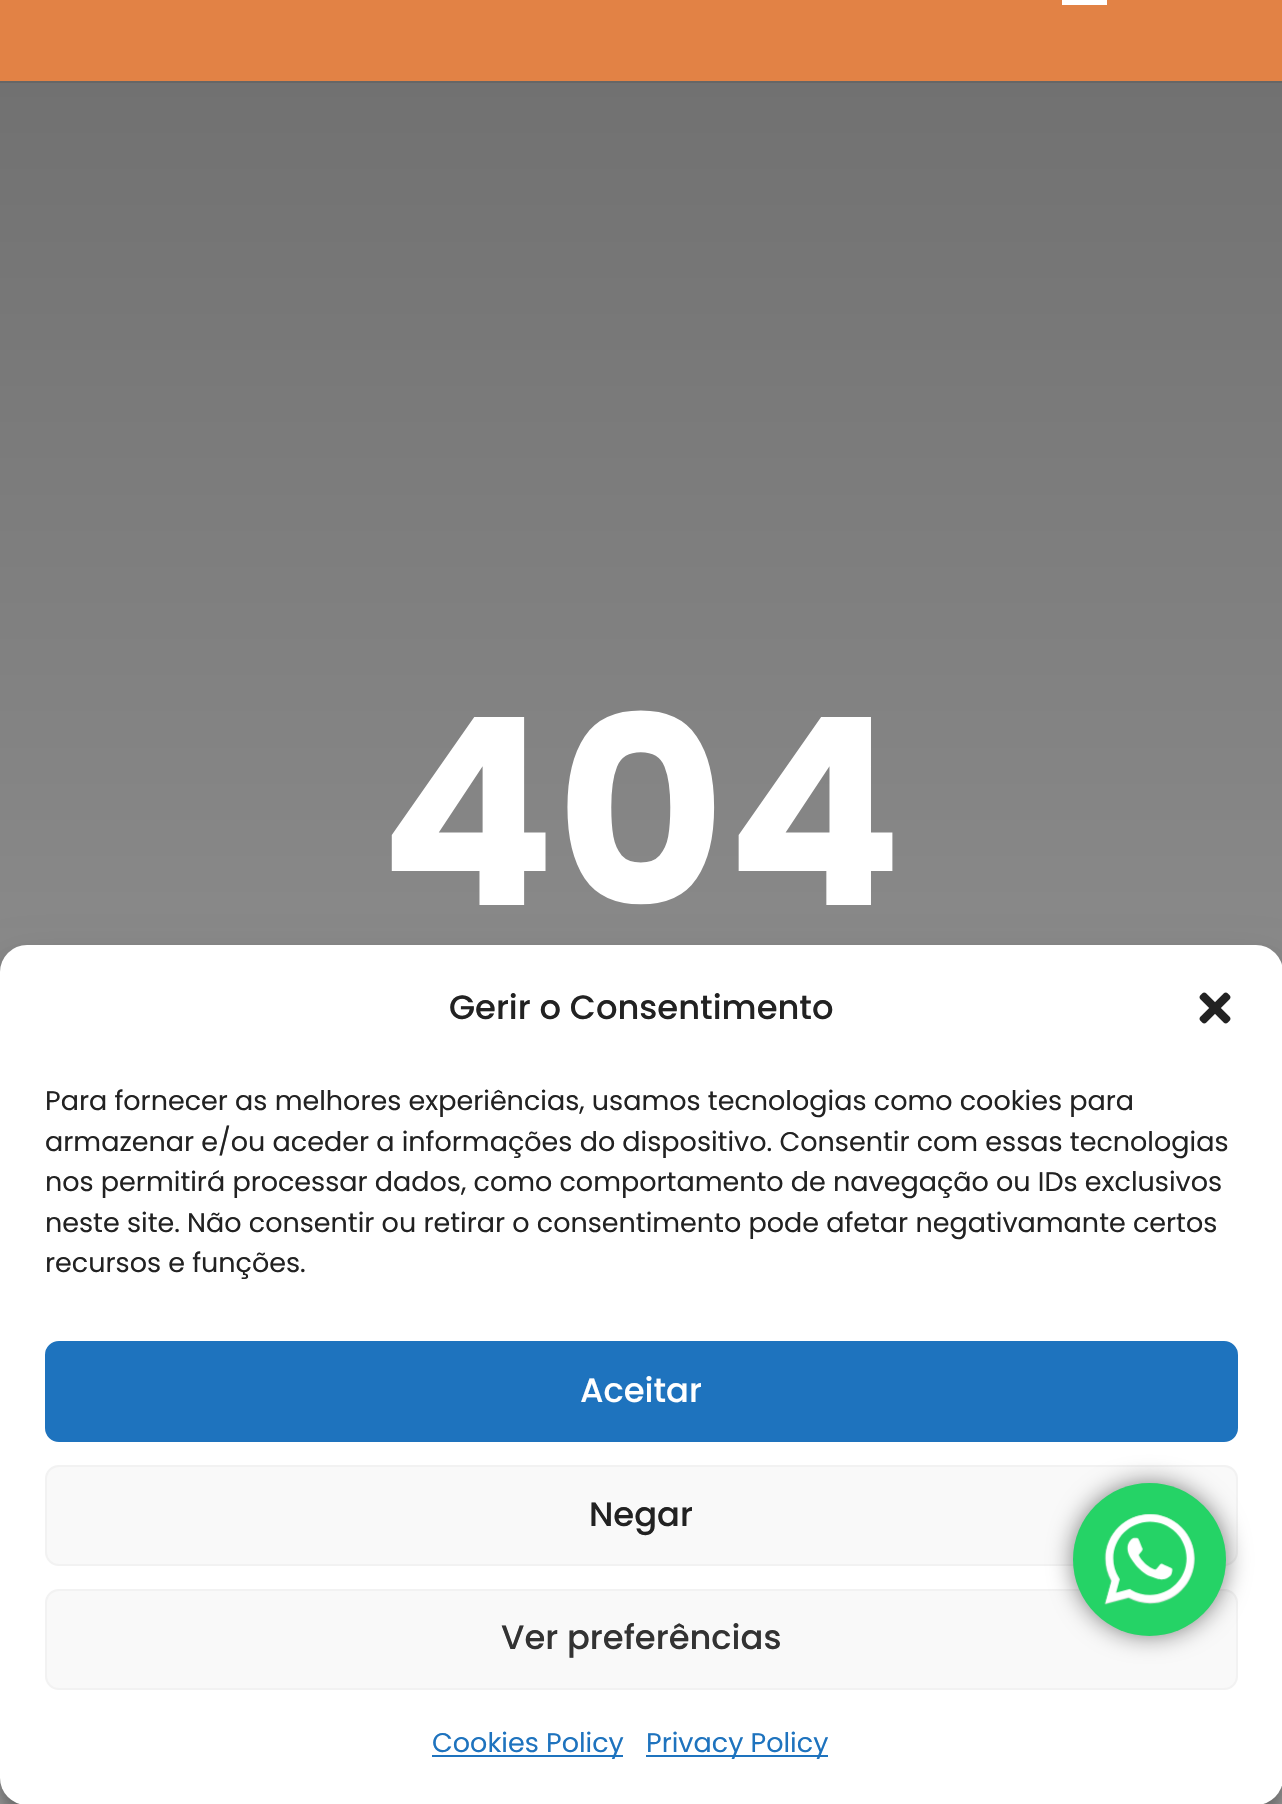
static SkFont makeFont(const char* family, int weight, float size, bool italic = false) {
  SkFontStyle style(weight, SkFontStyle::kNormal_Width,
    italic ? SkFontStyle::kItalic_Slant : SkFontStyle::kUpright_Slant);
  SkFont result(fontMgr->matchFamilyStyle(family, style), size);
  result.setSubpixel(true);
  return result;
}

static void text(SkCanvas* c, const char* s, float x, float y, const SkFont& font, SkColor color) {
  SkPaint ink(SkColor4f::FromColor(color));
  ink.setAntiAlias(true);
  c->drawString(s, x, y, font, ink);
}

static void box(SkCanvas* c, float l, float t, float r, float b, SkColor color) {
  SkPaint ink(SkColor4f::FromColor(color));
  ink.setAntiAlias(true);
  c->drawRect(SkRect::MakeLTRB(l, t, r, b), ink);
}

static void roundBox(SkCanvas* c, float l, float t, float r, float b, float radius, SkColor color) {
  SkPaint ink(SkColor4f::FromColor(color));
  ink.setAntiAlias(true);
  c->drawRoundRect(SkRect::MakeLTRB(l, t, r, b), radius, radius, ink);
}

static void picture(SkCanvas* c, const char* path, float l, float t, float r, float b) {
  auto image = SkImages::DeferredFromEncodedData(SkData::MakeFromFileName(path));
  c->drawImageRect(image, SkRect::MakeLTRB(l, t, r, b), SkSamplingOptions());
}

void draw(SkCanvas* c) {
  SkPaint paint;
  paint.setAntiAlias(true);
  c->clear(0xffffffff);
  paint.setColor(0xff666666);
  c->drawPath(SkPathBuilder().moveTo(0, 81).lineTo(0, 83).lineTo(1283, 83).lineTo(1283, -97).lineTo(1282, -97).lineTo(1282, 81).close().detach(), paint);
  box(c, 0, 0, 1282, 81, 0xffe28245);
  box(c, 1062, 0, 1107, 5, 0xffffffff);
  {
    const SkColor colors[] = {0xff717171, 0xffa4a4a4};
    const float stops[] = {0, 1};
    const SkPoint ends[] = {{641, 79}, {641, 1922}};
    paint.setShader(SkGradientShader::MakeLinear(ends, colors, stops, 2, SkTileMode::kClamp));
    paint.setAlpha(255);
  }
  c->drawRect(SkRect::MakeLTRB(0, 83, 1282, 1804), paint);
  SkFont face1 = makeFont("Poppins", 700, 261);
  text(c, "404", 379, 905, face1, 0xffffffff);
  paint.setShader(nullptr);
  paint.setColor(0x3b000000);
  paint.setMaskFilter(SkMaskFilter::MakeBlur(kNormal_SkBlurStyle, 7));
  c->drawRoundRect(SkRect::MakeLTRB(0, 959, 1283, 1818), 27, 27, paint);
  paint.setMaskFilter(nullptr);
  paint.setColor(0x30000000);
  paint.setMaskFilter(SkMaskFilter::MakeBlur(kNormal_SkBlurStyle, 22.5f));
  c->drawRoundRect(SkRect::MakeLTRB(0, 968, 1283, 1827), 27, 27, paint);
  paint.setMaskFilter(nullptr);
  roundBox(c, 0, 945, 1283, 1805, 27, 0xffffffff);
  SkFont face2 = makeFont("Poppins", 500, 33.75f);
  text(c, "Gerir o Consentimento", 449, 1019, face2, 0xff222222);
  picture(c, "img_01.png", 1199, 992, 1231, 1024);
  SkFont face3 = makeFont("Poppins", 400, 27);
  text(c, "Para fornecer as melhores experiências, usamos tecnologias como cookies para", 45, 1110, face3, 0xff222222);
  text(c, "armazenar e/ou aceder a informações do dispositivo. Consentir com essas tecnologias", 45, 1151, face3, 0xff222222);
  text(c, "nos permitirá processar dados, como comportamento de navegação ou IDs exclusivos", 45, 1191, face3, 0xff222222);
  text(c, "neste site. Não consentir ou retirar o consentimento pode afetar negativamante certos", 45, 1232, face3, 0xff222222);
  text(c, "recursos e funções.", 45, 1272, face3, 0xff222222);
  paint.setColor(0xff1e73be);
  c->drawRoundRect(SkRect::MakeLTRB(46, 1342, 1237, 1441), 13, 13, paint);
  paint.setStyle(SkPaint::kStroke_Style);
  paint.setStrokeWidth(2);
  c->drawRoundRect(SkRect::MakeLTRB(46, 1342, 1237, 1441), 13, 13, paint);
  text(c, "Aceitar", 580, 1402, face2, 0xffffffff);
  paint.setStyle(SkPaint::kFill_Style);
  paint.setColor(0xfff9f9f9);
  c->drawRoundRect(SkRect::MakeLTRB(46, 1466, 1237, 1565), 13, 13, paint);
  paint.setStyle(SkPaint::kStroke_Style);
  paint.setColor(0xfff2f2f2);
  c->drawRoundRect(SkRect::MakeLTRB(46, 1466, 1237, 1565), 13, 13, paint);
  text(c, "Negar", 589, 1526, face2, 0xff222222);
  paint.setStyle(SkPaint::kFill_Style);
  paint.setColor(0xfff9f9f9);
  c->drawRoundRect(SkRect::MakeLTRB(46, 1590, 1237, 1689), 13, 13, paint);
  paint.setStyle(SkPaint::kStroke_Style);
  paint.setColor(0xfff2f2f2);
  c->drawRoundRect(SkRect::MakeLTRB(46, 1590, 1237, 1689), 13, 13, paint);
  text(c, "Ver preferências", 501, 1649, face2, 0xff333333);
  box(c, 432, 1755, 623, 1757, 0xff1e73be);
  text(c, "Cookies Policy", 432, 1752, face3, 0xff1e73be);
  box(c, 646, 1755, 828, 1757, 0xff1e73be);
  text(c, "Privacy Policy", 646, 1752, face3, 0xff1e73be);
  paint.setStyle(SkPaint::kFill_Style);
  paint.setColor(0x80000000);
  paint.setMaskFilter(SkMaskFilter::MakeBlur(kNormal_SkBlurStyle, 12.5f));
  c->drawRoundRect(SkRect::MakeLTRB(1073, 1483, 1226, 1636), 76.5f, 76.5f, paint);
  paint.setMaskFilter(nullptr);
  paint.setColor(0xff25d366);
  c->drawCircle(1149.5f, 1559.5f, 76.5f, paint);
  picture(c, "img_02.png", 1104, 1514, 1195, 1605);
}
